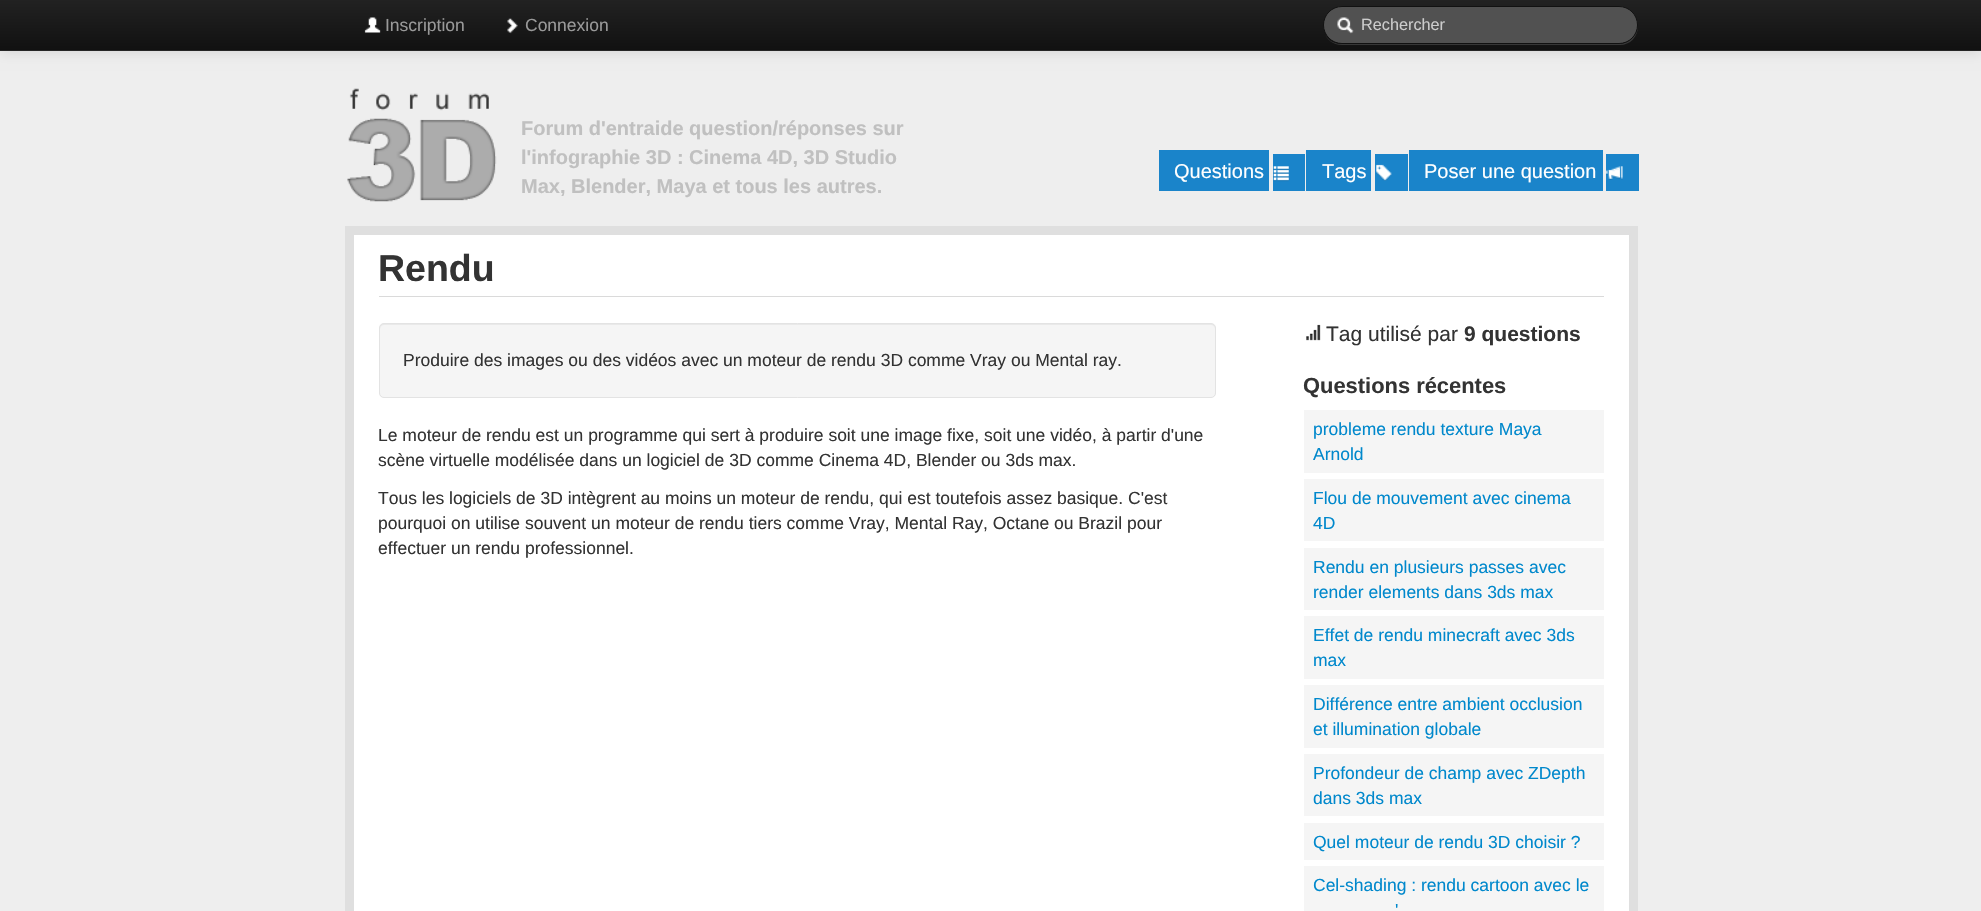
static SkFont makeFont(const char* family, int weight, float size, bool italic = false) {
  SkFontStyle style(weight, SkFontStyle::kNormal_Width,
    italic ? SkFontStyle::kItalic_Slant : SkFontStyle::kUpright_Slant);
  SkFont result(fontMgr->matchFamilyStyle(family, style), size);
  result.setSubpixel(true);
  return result;
}

static void text(SkCanvas* c, const char* s, float x, float y, const SkFont& font, SkColor color) {
  SkPaint ink(SkColor4f::FromColor(color));
  ink.setAntiAlias(true);
  c->drawString(s, x, y, font, ink);
}

static void box(SkCanvas* c, float l, float t, float r, float b, SkColor color) {
  SkPaint ink(SkColor4f::FromColor(color));
  ink.setAntiAlias(true);
  c->drawRect(SkRect::MakeLTRB(l, t, r, b), ink);
}

static void roundBox(SkCanvas* c, float l, float t, float r, float b, float radius, SkColor color) {
  SkPaint ink(SkColor4f::FromColor(color));
  ink.setAntiAlias(true);
  c->drawRoundRect(SkRect::MakeLTRB(l, t, r, b), radius, radius, ink);
}

static void picture(SkCanvas* c, const char* path, float l, float t, float r, float b) {
  auto image = SkImages::DeferredFromEncodedData(SkData::MakeFromFileName(path));
  c->drawImageRect(image, SkRect::MakeLTRB(l, t, r, b), SkSamplingOptions());
}

void draw(SkCanvas* c) {
  SkPaint paint;
  paint.setAntiAlias(true);
  c->clear(0xffeeeeee);
  paint.setColor(0x1a000000);
  paint.setMaskFilter(SkMaskFilter::MakeBlur(kNormal_SkBlurStyle, 6));
  c->drawRect(SkRect::MakeLTRB(0, 1, 1981, 53), paint);
  paint.setMaskFilter(nullptr);
  {
    const SkColor colors[] = {0xff222222, 0xff111111};
    const float stops[] = {0, 1};
    const SkPoint ends[] = {{991, 0}, {991, 50}};
    paint.setShader(SkGradientShader::MakeLinear(ends, colors, stops, 2, SkTileMode::kClamp));
    paint.setAlpha(255);
  }
  c->drawRect(SkRect::MakeLTRB(0, 0, 1981, 50), paint);
  box(c, 0, 50, 1981, 51, 0xff252525);
  picture(c, "img_01.png", 364, 17, 381, 33);
  SkFont face1 = makeFont("Liberation Sans", 400, 17.5f);
  text(c, "Inscription", 385, 31, face1, 0xff999999);
  picture(c, "img_02.png", 507, 18, 518, 34);
  text(c, "Connexion", 525, 31, face1, 0xff999999);
  paint.setShader(nullptr);
  paint.setColor(0x26ffffff);
  c->drawPath(SkPathBuilder().moveTo(1324, 32).cubicTo(1326, 39, 1333, 45, 1342, 45).lineTo(1620, 45).cubicTo(1630, 45, 1638, 37, 1638, 26).cubicTo(1638, 24, 1638, 22, 1637, 20).lineTo(1638, 25).cubicTo(1638, 35, 1629, 44, 1619, 44).lineTo(1341, 44).cubicTo(1333, 44, 1326, 39, 1324, 32).close().detach(), paint);
  paint.setColor(0xff515151);
  c->drawRoundRect(SkRect::MakeLTRB(1323.5f, 6.5f, 1637.5f, 43.5f), 18.5f, 18.5f, paint);
  paint.setStyle(SkPaint::kStroke_Style);
  paint.setStrokeWidth(1);
  paint.setColor(0xff111111);
  c->drawRoundRect(SkRect::MakeLTRB(1323.5f, 6.5f, 1637.5f, 43.5f), 18.5f, 18.5f, paint);
  picture(c, "img_03.png", 1337, 17, 1354, 34);
  SkFont face2 = makeFont("Liberation Sans", 400, 16.25f);
  text(c, "Rechercher", 1361, 30, face2, 0xffcccccc);
  picture(c, "img_04.png", 347, 88, 497, 202);
  SkFont face3 = makeFont("Liberation Sans", 700, 20);
  text(c, "Forum d'entraide question/réponses sur", 521, 135, face3, 0xffc0c0c0);
  text(c, "l'infographie 3D : Cinema 4D, 3D Studio", 521, 164, face3, 0xffc0c0c0);
  text(c, "Max, Blender, Maya et tous les autres.", 521, 193, face3, 0xffc0c0c0);
  box(c, 1159, 150, 1269, 191, 0xff1a84ca);
  box(c, 1273, 154, 1305, 191, 0xff1a84ca);
  SkFont face4 = makeFont("Liberation Sans", 400, 20);
  text(c, "Questions", 1174, 178, face4, 0xffffffff);
  picture(c, "img_05.png", 1273, 166, 1289, 182);
  box(c, 1306, 150, 1371, 191, 0xff1a84ca);
  box(c, 1375, 154, 1408, 191, 0xff1a84ca);
  text(c, "Tags", 1322, 178, face4, 0xffffffff);
  picture(c, "img_06.png", 1376, 164, 1392, 181);
  box(c, 1409, 150, 1603, 191, 0xff1a84ca);
  box(c, 1606, 154, 1639, 191, 0xff1a84ca);
  text(c, "Poser une question", 1424, 178, face4, 0xffffffff);
  picture(c, "img_07.png", 1606, 166, 1623, 180);
  paint.setStyle(SkPaint::kFill_Style);
  paint.setColor(0xffffffff);
  c->drawRect(SkRect::MakeLTRB(349.5f, 230.5f, 1633.5f, 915.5f), paint);
  paint.setStyle(SkPaint::kStroke_Style);
  paint.setStrokeWidth(9);
  paint.setColor(0xffdfdfdf);
  c->drawRect(SkRect::MakeLTRB(349.5f, 230.5f, 1633.5f, 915.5f), paint);
  box(c, 379, 296, 1604, 297, 0xffdadada);
  SkFont face5 = makeFont("Liberation Sans", 700, 37.5f);
  text(c, "Rendu", 378, 281, face5, 0xff333333);
  roundBox(c, 379, 323, 1216, 398, 5, 0xfff5f5f5);
  paint.setStyle(SkPaint::kFill_Style);
  paint.setColor(0xffe9e9e9);
  c->drawPath(SkPathBuilder().moveTo(384, 325).lineTo(1211, 325).cubicTo(1213, 325, 1215, 327, 1215, 329).cubicTo(1215, 326, 1214, 324, 1211, 324).lineTo(384, 324).cubicTo(381, 324, 380, 326, 380, 329).cubicTo(380, 327, 382, 325, 384, 325).close().detach(), paint);
  paint.setStyle(SkPaint::kStroke_Style);
  paint.setStrokeWidth(1);
  paint.setColor(0xffe3e3e3);
  c->drawRoundRect(SkRect::MakeLTRB(379.5f, 323.5f, 1215.5f, 397.5f), 4.5f, 4.5f, paint);
  text(c, "Produire des images ou des vidéos avec un moteur de rendu 3D comme Vray ou Mental ray.", 403, 366, face1, 0xff333333);
  text(c, "Le moteur de rendu est un programme qui sert à produire soit une image fixe, soit une vidéo, à partir d'une", 378, 441, face1, 0xff333333);
  text(c, "scène virtuelle modélisée dans un logiciel de 3D comme Cinema 4D, Blender ou 3ds max.", 378, 466, face1, 0xff333333);
  text(c, "Tous les logiciels de 3D intègrent au moins un moteur de rendu, qui est toutefois assez basique. C'est", 378, 504, face1, 0xff333333);
  text(c, "pourquoi on utilise souvent un moteur de rendu tiers comme Vray, Mental Ray, Octane ou Brazil pour", 378, 529, face1, 0xff333333);
  text(c, "effectuer un rendu professionnel.", 378, 554, face1, 0xff333333);
  picture(c, "img_08.png", 1306, 324, 1321, 341);
  SkFont face6 = makeFont("Liberation Sans", 400, 21);
  text(c, "Tag utilisé par", 1326, 341, face6, 0xff333333);
  SkFont face7 = makeFont("Liberation Sans", 700, 21);
  text(c, "9 questions", 1464, 341, face7, 0xff333333);
  SkFont face8 = makeFont("Liberation Sans", 700, 21.9f);
  text(c, "Questions récentes", 1303, 393, face8, 0xff333333);
  box(c, 1304, 410, 1604, 473, 0xfff5f5f5);
  text(c, "probleme rendu texture Maya", 1313, 435, face1, 0xff0088cc);
  text(c, "Arnold", 1313, 460, face1, 0xff0088cc);
  box(c, 1304, 479, 1604, 541, 0xfff5f5f5);
  text(c, "Flou de mouvement avec cinema", 1313, 504, face1, 0xff0088cc);
  text(c, "4D", 1313, 529, face1, 0xff0088cc);
  box(c, 1304, 548, 1604, 610, 0xfff5f5f5);
  text(c, "Rendu en plusieurs passes avec", 1313, 573, face1, 0xff0088cc);
  text(c, "render elements dans 3ds max", 1313, 598, face1, 0xff0088cc);
  box(c, 1304, 616, 1604, 679, 0xfff5f5f5);
  text(c, "Effet de rendu minecraft avec 3ds", 1313, 641, face1, 0xff0088cc);
  text(c, "max", 1313, 666, face1, 0xff0088cc);
  box(c, 1304, 685, 1604, 748, 0xfff5f5f5);
  text(c, "Différence entre ambient occlusion", 1313, 710, face1, 0xff0088cc);
  text(c, "et illumination globale", 1313, 735, face1, 0xff0088cc);
  box(c, 1304, 754, 1604, 816, 0xfff5f5f5);
  text(c, "Profondeur de champ avec ZDepth", 1313, 779, face1, 0xff0088cc);
  text(c, "dans 3ds max", 1313, 804, face1, 0xff0088cc);
  box(c, 1304, 823, 1604, 860, 0xfff5f5f5);
  text(c, "Quel moteur de rendu 3D choisir ?", 1313, 848, face1, 0xff0088cc);
  box(c, 1304, 866, 1604, 911, 0xfff5f5f5);
  text(c, "Cel-shading : rendu cartoon avec le", 1313, 891, face1, 0xff0088cc);
  text(c, "'", 1395, 916, face1, 0xff0088cc);
}
